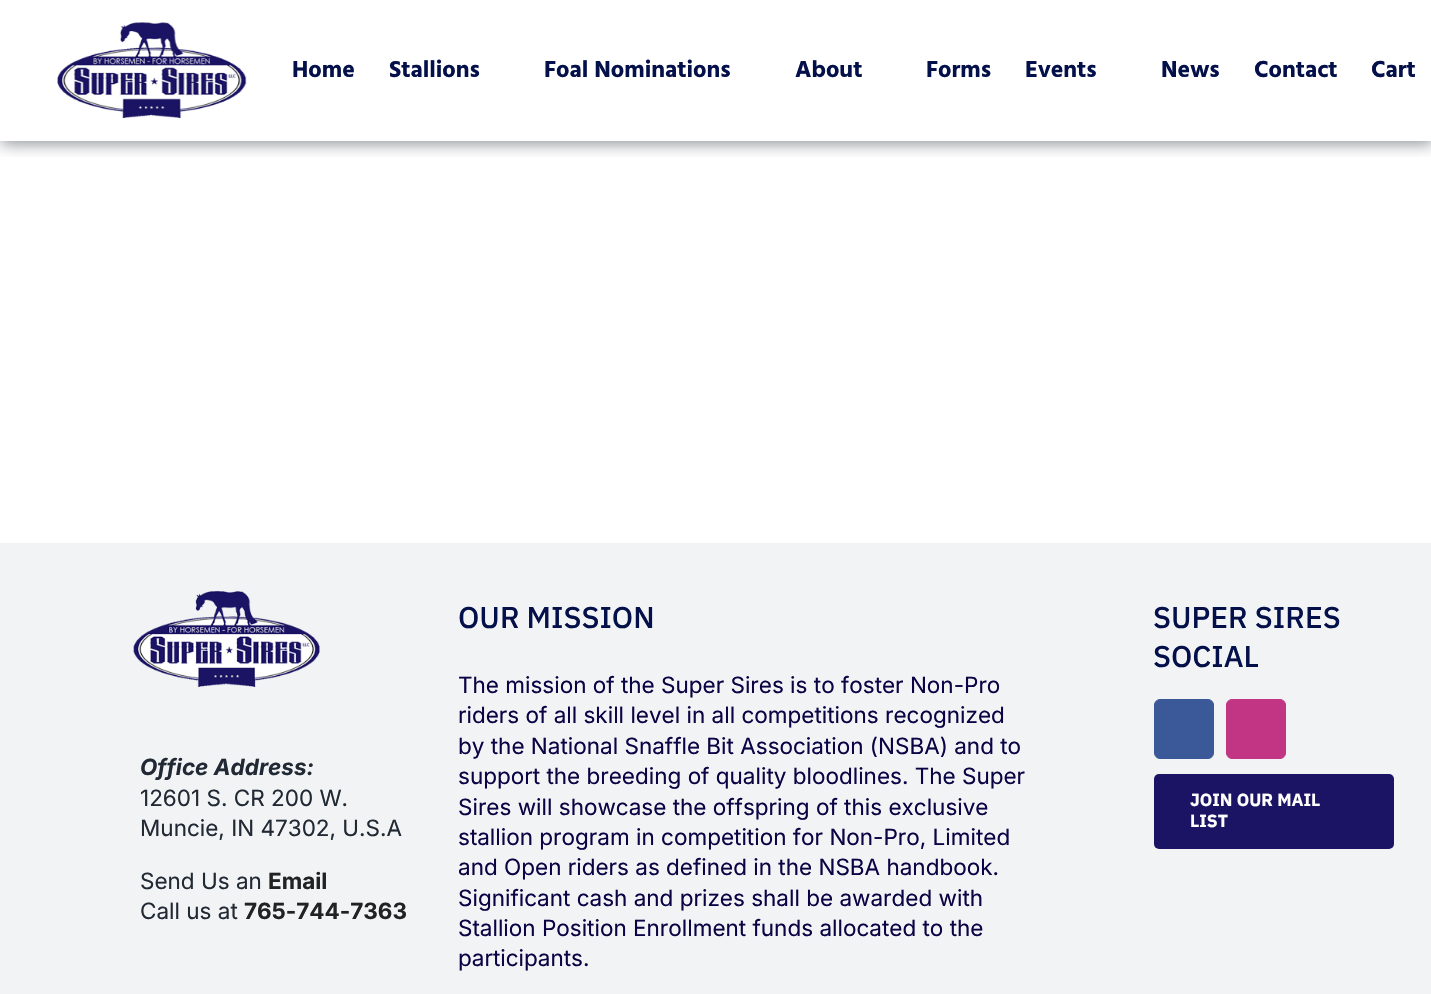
static SkFont makeFont(const char* family, int weight, float size, bool italic = false) {
  SkFontStyle style(weight, SkFontStyle::kNormal_Width,
    italic ? SkFontStyle::kItalic_Slant : SkFontStyle::kUpright_Slant);
  SkFont result(fontMgr->matchFamilyStyle(family, style), size);
  result.setSubpixel(true);
  return result;
}

static void text(SkCanvas* c, const char* s, float x, float y, const SkFont& font, SkColor color) {
  SkPaint ink(SkColor4f::FromColor(color));
  ink.setAntiAlias(true);
  c->drawString(s, x, y, font, ink);
}

static void box(SkCanvas* c, float l, float t, float r, float b, SkColor color) {
  SkPaint ink(SkColor4f::FromColor(color));
  ink.setAntiAlias(true);
  c->drawRect(SkRect::MakeLTRB(l, t, r, b), ink);
}

static void roundBox(SkCanvas* c, float l, float t, float r, float b, float radius, SkColor color) {
  SkPaint ink(SkColor4f::FromColor(color));
  ink.setAntiAlias(true);
  c->drawRoundRect(SkRect::MakeLTRB(l, t, r, b), radius, radius, ink);
}

static void picture(SkCanvas* c, const char* path, float l, float t, float r, float b) {
  auto image = SkImages::DeferredFromEncodedData(SkData::MakeFromFileName(path));
  c->drawImageRect(image, SkRect::MakeLTRB(l, t, r, b), SkSamplingOptions());
}

void draw(SkCanvas* c) {
  SkPaint paint;
  paint.setAntiAlias(true);
  c->clear(0xffffffff);
  c->save();
  c->clipRect(SkRect::MakeLTRB(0, 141, 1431, 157));
  paint.setColor(0x801d242d);
  paint.setMaskFilter(SkMaskFilter::MakeBlur(kNormal_SkBlurStyle, 7.5f));
  c->drawRect(SkRect::MakeLTRB(1, 3, 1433, 144), paint);
  paint.setMaskFilter(nullptr);
  c->restore();
  picture(c, "img_01.png", 57, 22, 247, 119);
  SkFont face1 = makeFont("Hind Siliguri", 700, 23.75f);
  text(c, "Home", 292, 77, face1, 0xff041049);
  text(c, "Stallions", 389, 77, face1, 0xff041049);
  text(c, "Foal Nominations", 544, 77, face1, 0xff041049);
  text(c, "About", 795, 77, face1, 0xff041049);
  text(c, "Forms", 926, 77, face1, 0xff041049);
  text(c, "Events", 1025, 77, face1, 0xff041049);
  text(c, "News", 1161, 77, face1, 0xff041049);
  text(c, "Contact", 1254, 77, face1, 0xff041049);
  text(c, "Cart", 1371, 77, face1, 0xff041049);
  box(c, 0, 543, 1431, 994, 0xfff2f3f5);
  picture(c, "img_02.png", 133, 591, 320, 688);
  SkFont face2 = makeFont("Inter", 700, 22.5f, true);
  text(c, "Office Address:", 140, 775, face2, 0xff212934);
  SkFont face3 = makeFont("Inter", 400, 22.5f);
  text(c, "12601 S. CR 200 W.", 140, 806, face3, 0xff212934);
  text(c, "Muncie, IN 47302, U.S.A", 140, 836, face3, 0xff212934);
  text(c, "Send Us an", 140, 889, face3, 0xff212934);
  SkFont face4 = makeFont("Inter", 700, 22.5f);
  text(c, "Email", 268, 889, face4, 0xff222222);
  text(c, "Call us at", 140, 919, face3, 0xff212934);
  text(c, "765-744-7363", 244, 919, face4, 0xff222222);
  SkFont face5 = makeFont("IBM Plex Sans", 500, 30);
  text(c, "OUR MISSION", 458, 628, face5, 0xff041049);
  text(c, "The mission of the Super Sires is to foster Non-Pro", 458, 693, face3, 0xff090444);
  text(c, "riders of all skill level in all competitions recognized", 458, 723, face3, 0xff090444);
  text(c, "by the National Snaffle Bit Association (NSBA) and to", 458, 754, face3, 0xff090444);
  text(c, "support the breeding of quality bloodlines. The Super", 458, 784, face3, 0xff090444);
  text(c, "Sires will showcase the offspring of this exclusive", 458, 815, face3, 0xff090444);
  text(c, "stallion program in competition for Non-Pro, Limited", 458, 845, face3, 0xff090444);
  text(c, "and Open riders as defined in the NSBA handbook.", 458, 875, face3, 0xff090444);
  text(c, "Significant cash and prizes shall be awarded with", 458, 906, face3, 0xff090444);
  text(c, "Stallion Position Enrollment funds allocated to the", 458, 936, face3, 0xff090444);
  text(c, "participants.", 458, 966, face3, 0xff090444);
  text(c, "SUPER SIRES", 1153, 628, face5, 0xff041049);
  text(c, "SOCIAL", 1153, 667, face5, 0xff041049);
  paint.setColor(0xff3b5998);
  c->drawRoundRect(SkRect::MakeLTRB(1154.5f, 699.5f, 1213.5f, 758.5f), 5.5f, 5.5f, paint);
  paint.setStyle(SkPaint::kStroke_Style);
  paint.setStrokeWidth(1);
  c->drawRoundRect(SkRect::MakeLTRB(1154.5f, 699.5f, 1213.5f, 758.5f), 5.5f, 5.5f, paint);
  paint.setStyle(SkPaint::kFill_Style);
  paint.setColor(0xffc13584);
  c->drawRoundRect(SkRect::MakeLTRB(1226.5f, 699.5f, 1285.5f, 758.5f), 5.5f, 5.5f, paint);
  paint.setStyle(SkPaint::kStroke_Style);
  c->drawRoundRect(SkRect::MakeLTRB(1226.5f, 699.5f, 1285.5f, 758.5f), 5.5f, 5.5f, paint);
  roundBox(c, 1154, 774, 1394, 849, 5, 0xff1b1464);
  SkFont face6 = makeFont("IBM Plex Sans", 700, 17.5f);
  text(c, "JOIN OUR MAIL", 1190, 806, face6, 0xffffffff);
  text(c, "LIST", 1190, 827, face6, 0xffffffff);
}
